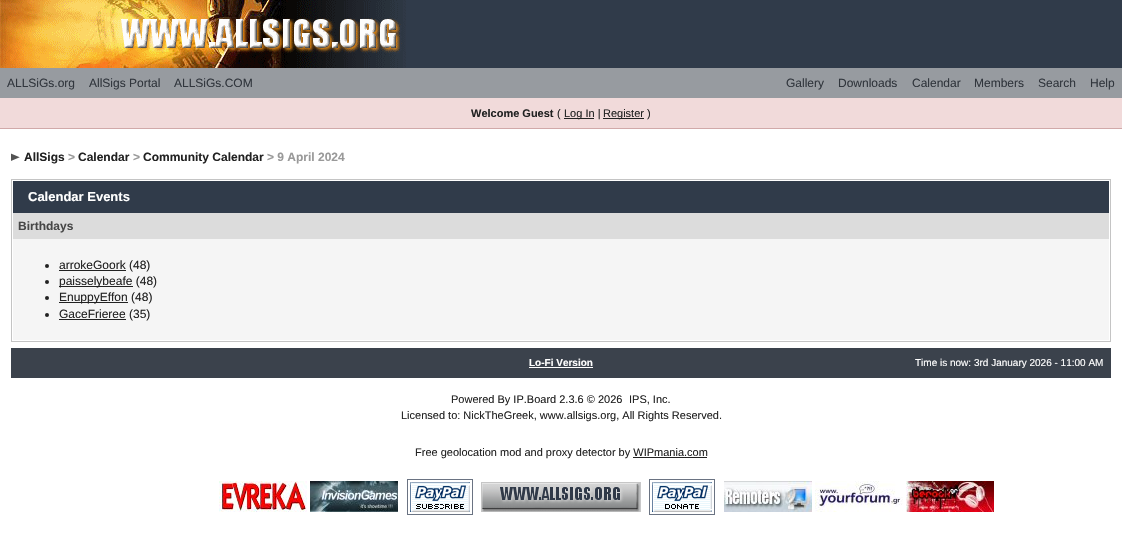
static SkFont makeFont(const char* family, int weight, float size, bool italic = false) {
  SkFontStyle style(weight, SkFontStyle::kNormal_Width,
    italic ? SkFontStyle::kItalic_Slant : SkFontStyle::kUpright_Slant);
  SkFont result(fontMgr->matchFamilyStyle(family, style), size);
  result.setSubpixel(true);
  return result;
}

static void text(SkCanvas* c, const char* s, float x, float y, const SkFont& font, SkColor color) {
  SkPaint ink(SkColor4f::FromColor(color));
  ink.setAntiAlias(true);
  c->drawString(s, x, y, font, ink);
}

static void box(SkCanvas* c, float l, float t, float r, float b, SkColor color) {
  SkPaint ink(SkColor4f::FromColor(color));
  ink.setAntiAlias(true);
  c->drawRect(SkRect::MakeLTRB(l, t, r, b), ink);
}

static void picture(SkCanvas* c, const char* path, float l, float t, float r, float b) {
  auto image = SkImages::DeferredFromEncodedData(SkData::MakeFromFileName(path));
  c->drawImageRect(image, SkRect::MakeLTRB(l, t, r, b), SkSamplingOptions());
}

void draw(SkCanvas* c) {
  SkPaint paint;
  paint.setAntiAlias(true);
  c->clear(0xffffffff);
  box(c, 406, 0, 1122, 68, 0xff303b4a);
  picture(c, "img_01.png", 0, 0, 406, 68);
  box(c, 0, 68, 1122, 98, 0xff979ba0);
  SkFont face1 = makeFont("Liberation Sans", 400, 12);
  text(c, "ALLSiGs.org", 7, 87, face1, 0xff31363d);
  text(c, "AllSigs Portal", 89, 87, face1, 0xff31363d);
  text(c, "ALLSiGs.COM", 174, 87, face1, 0xff31363d);
  text(c, "Gallery", 786, 87, face1, 0xff31363d);
  text(c, "Downloads", 838, 87, face1, 0xff31363d);
  text(c, "Calendar", 912, 87, face1, 0xff31363d);
  text(c, "Members", 974, 87, face1, 0xff31363d);
  text(c, "Search", 1038, 87, face1, 0xff31363d);
  text(c, "Help", 1090, 87, face1, 0xff31363d);
  box(c, 0, 98, 1122, 128, 0xfff1dada);
  box(c, 0, 128, 1122, 129, 0xffd1a9a9);
  SkFont face2 = makeFont("Liberation Sans", 700, 11);
  text(c, "Welcome Guest", 471, 117, face2, 0xff222222);
  SkFont face3 = makeFont("Liberation Sans", 400, 11);
  text(c, "(", 557, 117, face3, 0xff222222);
  box(c, 564, 118, 594, 119, 0xff222222);
  text(c, "Log In |", 564, 117, face3, 0xff222222);
  box(c, 603, 118, 644, 119, 0xff222222);
  text(c, "Register )", 603, 117, face3, 0xff222222);
  picture(c, "img_02.png", 11, 153, 20, 161);
  SkFont face4 = makeFont("Liberation Sans", 700, 12);
  text(c, "AllSigs", 24, 161, face4, 0xff222222);
  text(c, ">", 68, 161, face4, 0xff999999);
  text(c, "Calendar", 78, 161, face4, 0xff222222);
  text(c, ">", 133, 161, face4, 0xff999999);
  text(c, "Community Calendar", 143, 161, face4, 0xff222222);
  text(c, "> 9 April 2024", 267, 161, face4, 0xff999999);
  paint.setStyle(SkPaint::kStroke_Style);
  paint.setStrokeWidth(1);
  paint.setColor(0xffc4c4c4);
  c->drawRect(SkRect::MakeLTRB(11.5f, 179.5f, 1110.5f, 341.5f), paint);
  box(c, 13, 181, 1109, 213, 0xff303b4a);
  SkFont face5 = makeFont("Liberation Sans", 700, 13);
  text(c, "Calendar Events", 28, 201, face5, 0xffffffff);
  box(c, 13, 213, 1109, 239, 0xffdcdcdc);
  text(c, "Birthdays", 18, 230, face4, 0xff474747);
  box(c, 13, 239, 1109, 340, 0xfff5f5f5);
  paint.setStyle(SkPaint::kFill_Style);
  paint.setColor(0xff222222);
  c->drawCircle(47, 266, 2, paint);
  box(c, 59, 270, 126, 271, 0xff222222);
  text(c, "arrokeGoork (48)", 59, 269, face1, 0xff222222);
  c->drawCircle(47, 282, 2, paint);
  box(c, 59, 286, 133, 287, 0xff222222);
  text(c, "paisselybeafe (48)", 59, 285, face1, 0xff222222);
  c->drawCircle(47, 298, 2, paint);
  box(c, 59, 302, 128, 303, 0xff222222);
  text(c, "EnuppyEffon (48)", 59, 301, face1, 0xff222222);
  c->drawCircle(47, 315, 2, paint);
  box(c, 59, 319, 126, 320, 0xff222222);
  text(c, "GaceFrieree (35)", 59, 318, face1, 0xff222222);
  box(c, 11, 348, 1111, 378, 0xff3b424c);
  SkFont face6 = makeFont("Liberation Sans", 700, 10);
  text(c, "Lo-Fi Version", 529, 366, face6, 0xffffffff);
  box(c, 529, 367, 593, 368, 0xffffffff);
  SkFont face7 = makeFont("Liberation Sans", 400, 10);
  text(c, "Time is now: 3rd January 2026 - 11:00 AM", 915, 366, face7, 0xffffffff);
  text(c, "Powered By IP.Board 2.3.6 © 2026", 451, 403, face3, 0xff222222);
  text(c, "IPS, Inc.", 629, 403, face3, 0xff222222);
  text(c, "Licensed to: NickTheGreek, www.allsigs.org, All Rights Reserved.", 401, 419, face3, 0xff222222);
  text(c, "Free geolocation mod and proxy detector by WIPmania.com", 415, 456, face3, 0xff222222);
  box(c, 633, 457, 707, 458, 0xff222222);
  picture(c, "img_03.png", 219, 481, 307, 512);
  picture(c, "img_04.png", 310, 481, 398, 512);
  paint.setStyle(SkPaint::kStroke_Style);
  paint.setColor(0xff6a7382);
  c->drawRect(SkRect::MakeLTRB(407.5f, 479.5f, 472.5f, 514.5f), paint);
  picture(c, "img_05.png", 410, 482, 470, 512);
  picture(c, "img_06.png", 481, 482, 641, 512);
  c->drawRect(SkRect::MakeLTRB(649.5f, 479.5f, 714.5f, 514.5f), paint);
  picture(c, "img_07.png", 652, 482, 712, 512);
  picture(c, "img_08.png", 724, 481, 812, 512);
  picture(c, "img_09.png", 815, 481, 903, 512);
  picture(c, "img_10.png", 906, 481, 994, 512);
}
